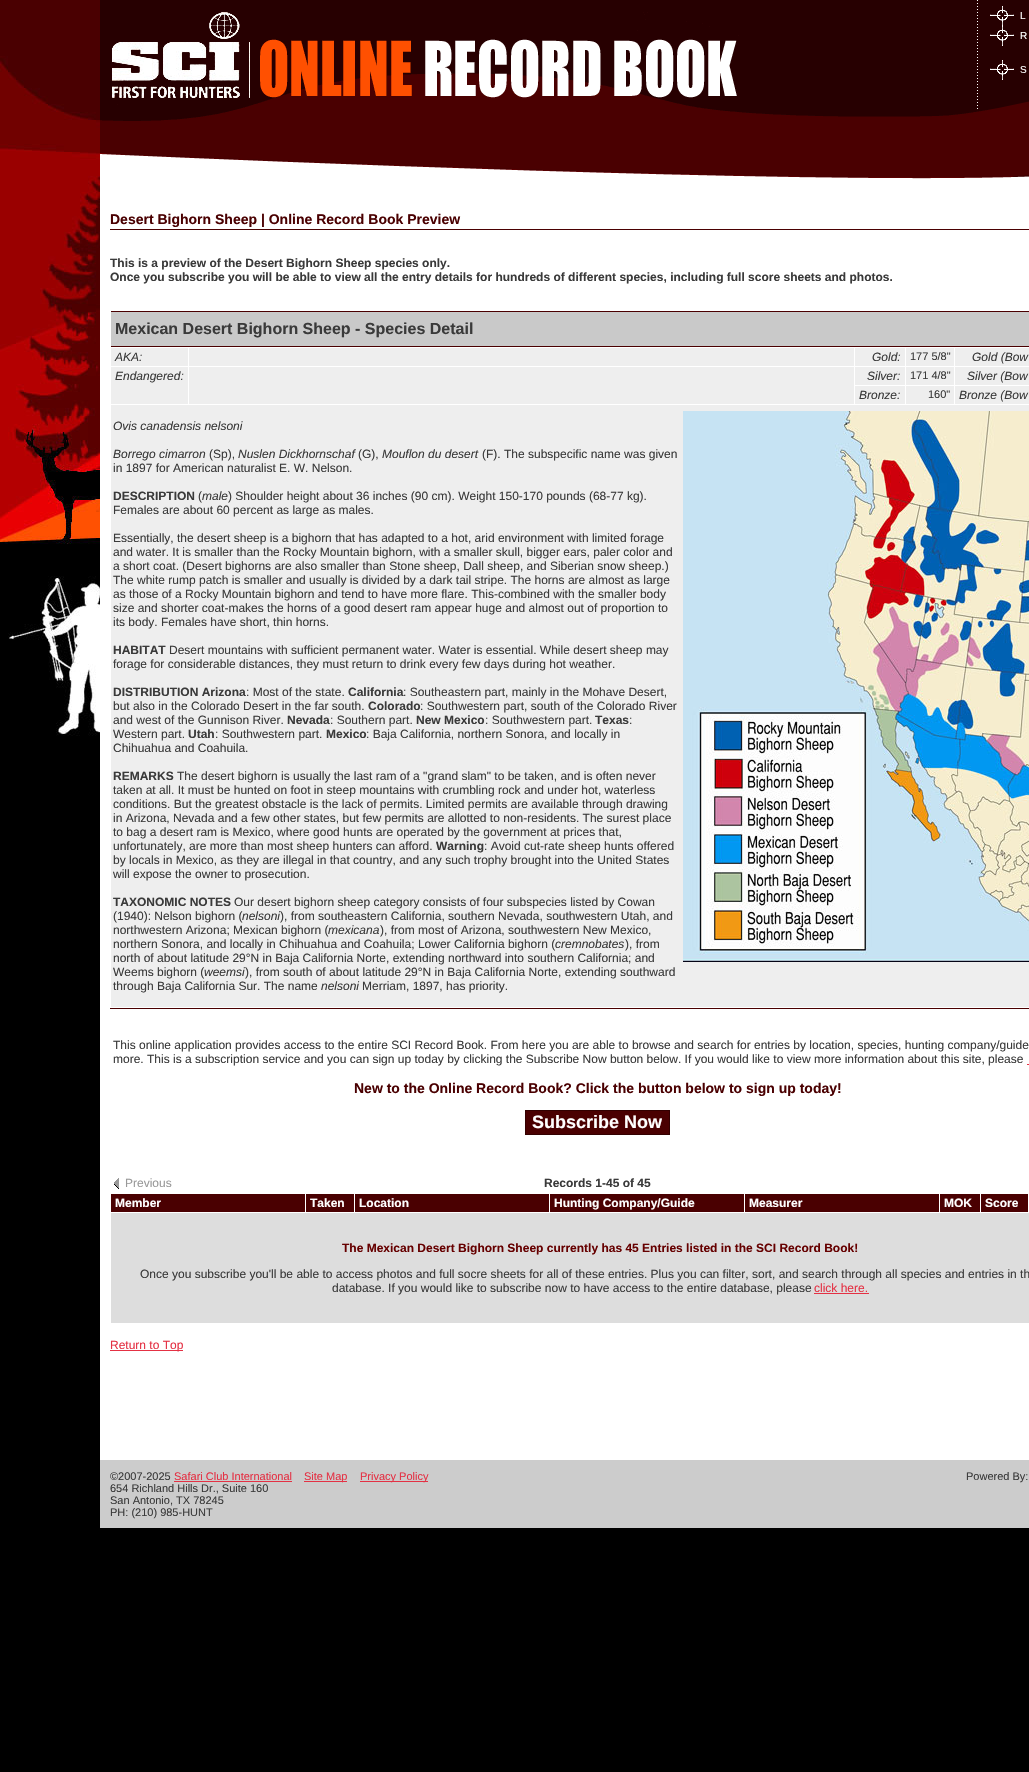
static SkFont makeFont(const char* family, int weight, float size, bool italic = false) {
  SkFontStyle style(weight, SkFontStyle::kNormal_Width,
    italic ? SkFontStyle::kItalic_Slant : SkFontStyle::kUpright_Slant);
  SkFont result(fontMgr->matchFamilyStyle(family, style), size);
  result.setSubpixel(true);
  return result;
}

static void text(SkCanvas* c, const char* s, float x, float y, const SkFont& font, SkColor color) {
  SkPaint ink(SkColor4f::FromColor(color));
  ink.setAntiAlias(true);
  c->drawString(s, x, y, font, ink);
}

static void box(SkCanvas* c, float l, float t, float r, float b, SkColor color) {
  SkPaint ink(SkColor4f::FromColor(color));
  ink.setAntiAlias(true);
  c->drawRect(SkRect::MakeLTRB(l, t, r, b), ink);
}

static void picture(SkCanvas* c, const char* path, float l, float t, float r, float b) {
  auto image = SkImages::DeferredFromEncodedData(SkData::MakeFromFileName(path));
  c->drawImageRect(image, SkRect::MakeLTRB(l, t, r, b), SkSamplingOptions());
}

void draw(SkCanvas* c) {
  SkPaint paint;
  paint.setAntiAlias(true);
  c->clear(0xff000000);
  picture(c, "img_01.png", 0, 0, 100, 736);
  box(c, 100, 179, 1029, 1460, 0xffffffff);
  picture(c, "img_02.png", 100, 0, 990, 122);
  picture(c, "img_03.png", 990, 0, 1029, 122);
  picture(c, "img_04.png", 990, 6, 1014, 26);
  SkFont face1 = makeFont("Liberation Sans", 400, 10);
  text(c, "L", 1020, 19, face1, 0xffffffff);
  picture(c, "img_04.png", 990, 26, 1014, 46);
  text(c, "R", 1020, 39, face1, 0xffffffff);
  picture(c, "img_04.png", 990, 60, 1014, 80);
  text(c, "S", 1020, 73, face1, 0xffffffff);
  picture(c, "img_05.png", 100, 122, 1029, 179);
  box(c, 110, 229, 1029, 230, 0xff4a0001);
  SkFont face2 = makeFont("Liberation Sans", 700, 14);
  text(c, "Desert Bighorn Sheep | Online Record Book Preview", 110, 224, face2, 0xff4a0001);
  SkFont face3 = makeFont("Liberation Sans", 700, 12);
  text(c, "This is a preview of the Desert Bighorn Sheep species only.", 110, 267, face3, 0xff3a3a3a);
  text(c, "Once you subscribe you will be able to view all the entry details for hundreds of different species, including full score sheets and photos.", 110, 281, face3, 0xff3a3a3a);
  box(c, 110, 1008, 1029, 1009, 0xff4a0001);
  box(c, 111, 312, 1029, 346, 0xffc9c9c9);
  box(c, 111, 311, 1029, 312, 0xff4a0001);
  box(c, 111, 346, 1029, 347, 0xff4a0001);
  SkFont face4 = makeFont("Liberation Sans", 700, 16);
  text(c, "Mexican Desert Bighorn Sheep - Species Detail", 115, 334, face4, 0xff3a3a3a);
  box(c, 111, 348, 188, 366, 0xffeeeeee);
  SkFont face5 = makeFont("Liberation Sans", 400, 12, true);
  text(c, "AKA:", 115, 361, face5, 0xff3a3a3a);
  box(c, 189, 348, 854, 366, 0xffeeeeee);
  box(c, 855, 348, 905, 366, 0xffeeeeee);
  text(c, "Gold:", 872, 361, face5, 0xff3a3a3a);
  box(c, 906, 348, 954, 366, 0xffeeeeee);
  SkFont face6 = makeFont("Liberation Sans", 400, 11);
  text(c, "177 5/8\"", 910, 360, face6, 0xff3a3a3a);
  box(c, 955, 348, 1029, 366, 0xffeeeeee);
  text(c, "Gold (Bow", 972, 361, face5, 0xff3a3a3a);
  box(c, 111, 367, 188, 404, 0xffeeeeee);
  text(c, "Endangered:", 115, 380, face5, 0xff3a3a3a);
  box(c, 189, 367, 854, 404, 0xffeeeeee);
  box(c, 855, 367, 905, 385, 0xffeeeeee);
  text(c, "Silver:", 867, 380, face5, 0xff3a3a3a);
  box(c, 906, 367, 954, 385, 0xffeeeeee);
  text(c, "171 4/8\"", 910, 379, face6, 0xff3a3a3a);
  box(c, 955, 367, 1029, 385, 0xffeeeeee);
  text(c, "Silver (Bow", 967, 380, face5, 0xff3a3a3a);
  box(c, 855, 386, 905, 404, 0xffeeeeee);
  text(c, "Bronze:", 859, 399, face5, 0xff3a3a3a);
  box(c, 906, 386, 954, 404, 0xffeeeeee);
  text(c, "160\"", 928, 398, face6, 0xff3a3a3a);
  box(c, 955, 386, 1029, 404, 0xffeeeeee);
  text(c, "Bronze (Bow", 959, 399, face5, 0xff3a3a3a);
  box(c, 111, 405, 1029, 1007, 0xffeeeeee);
  text(c, "Ovis canadensis nelsoni", 113, 430, face5, 0xff3a3a3a);
  text(c, "Borrego cimarron", 113, 458, face5, 0xff3a3a3a);
  SkFont face7 = makeFont("Liberation Sans", 400, 12);
  text(c, "(Sp),", 209, 458, face7, 0xff3a3a3a);
  text(c, "Nuslen Dickhornschaf", 238, 458, face5, 0xff3a3a3a);
  text(c, "(G),", 358, 458, face7, 0xff3a3a3a);
  text(c, "Mouflon du desert", 382, 458, face5, 0xff3a3a3a);
  text(c, "(F). The subspecific name was given", 482, 458, face7, 0xff3a3a3a);
  text(c, "in 1897 for American naturalist E. W. Nelson.", 113, 472, face7, 0xff3a3a3a);
  text(c, "DESCRIPTION", 113, 500, face3, 0xff3a3a3a);
  text(c, "(", 198, 500, face7, 0xff3a3a3a);
  text(c, "male", 202, 500, face5, 0xff3a3a3a);
  text(c, ") Shoulder height about 36 inches (90 cm). Weight 150-170 pounds (68-77 kg).", 228, 500, face7, 0xff3a3a3a);
  text(c, "Females are about 60 percent as large as males.", 113, 514, face7, 0xff3a3a3a);
  text(c, "Essentially, the desert sheep is a bighorn that has adapted to a hot, arid environment with limited forage", 113, 542, face7, 0xff3a3a3a);
  text(c, "and water. It is smaller than the Rocky Mountain bighorn, with a smaller skull, bigger ears, paler color and", 113, 556, face7, 0xff3a3a3a);
  text(c, "a short coat. (Desert bighorns are also smaller than Stone sheep, Dall sheep, and Siberian snow sheep.)", 113, 570, face7, 0xff3a3a3a);
  text(c, "The white rump patch is smaller and usually is divided by a dark tail stripe. The horns are almost as large", 113, 584, face7, 0xff3a3a3a);
  text(c, "as those of a Rocky Mountain bighorn and tend to have more flare. This-combined with the smaller body", 113, 598, face7, 0xff3a3a3a);
  text(c, "size and shorter coat-makes the horns of a good desert ram appear huge and almost out of proportion to", 113, 612, face7, 0xff3a3a3a);
  text(c, "its body. Females have short, thin horns.", 113, 626, face7, 0xff3a3a3a);
  text(c, "HABITAT", 113, 654, face3, 0xff3a3a3a);
  text(c, "Desert mountains with sufficient permanent water. Water is essential. While desert sheep may", 169, 654, face7, 0xff3a3a3a);
  text(c, "forage for considerable distances, they must return to drink every few days during hot weather.", 113, 668, face7, 0xff3a3a3a);
  text(c, "DISTRIBUTION Arizona", 113, 696, face3, 0xff3a3a3a);
  text(c, ": Most of the state.", 246, 696, face7, 0xff3a3a3a);
  text(c, "California", 348, 696, face3, 0xff3a3a3a);
  text(c, ": Southeastern part, mainly in the Mohave Desert,", 403, 696, face7, 0xff3a3a3a);
  text(c, "but also in the Colorado Desert in the far south.", 113, 710, face7, 0xff3a3a3a);
  text(c, "Colorado", 368, 710, face3, 0xff3a3a3a);
  text(c, ": Southwestern part, south of the Colorado River", 420, 710, face7, 0xff3a3a3a);
  text(c, "and west of the Gunnison River.", 113, 724, face7, 0xff3a3a3a);
  text(c, "Nevada", 287, 724, face3, 0xff3a3a3a);
  text(c, ": Southern part.", 330, 724, face7, 0xff3a3a3a);
  text(c, "New Mexico", 416, 724, face3, 0xff3a3a3a);
  text(c, ": Southwestern part.", 485, 724, face7, 0xff3a3a3a);
  text(c, "Texas", 595, 724, face3, 0xff3a3a3a);
  text(c, ":", 629, 724, face7, 0xff3a3a3a);
  text(c, "Western part.", 113, 738, face7, 0xff3a3a3a);
  text(c, "Utah", 188, 738, face3, 0xff3a3a3a);
  text(c, ": Southwestern part.", 215, 738, face7, 0xff3a3a3a);
  text(c, "Mexico", 326, 738, face3, 0xff3a3a3a);
  text(c, ": Baja California, northern Sonora, and locally in", 366, 738, face7, 0xff3a3a3a);
  text(c, "Chihuahua and Coahuila.", 113, 752, face7, 0xff3a3a3a);
  text(c, "REMARKS", 113, 780, face3, 0xff3a3a3a);
  text(c, "The desert bighorn is usually the last ram of a \"grand slam\" to be taken, and is often never", 177, 780, face7, 0xff3a3a3a);
  text(c, "taken at all. It must be hunted on foot in steep mountains with crumbling rock and under hot, waterless", 113, 794, face7, 0xff3a3a3a);
  text(c, "conditions. But the greatest obstacle is the lack of permits. Limited permits are available through drawing", 113, 808, face7, 0xff3a3a3a);
  text(c, "in Arizona, Nevada and a few other states, but few permits are allotted to non-residents. The surest place", 113, 822, face7, 0xff3a3a3a);
  text(c, "to bag a desert ram is Mexico, where good hunts are operated by the government at prices that,", 113, 836, face7, 0xff3a3a3a);
  text(c, "unfortunately, are more than most sheep hunters can afford.", 113, 850, face7, 0xff3a3a3a);
  text(c, "Warning", 436, 850, face3, 0xff3a3a3a);
  text(c, ": Avoid cut-rate sheep hunts offered", 484, 850, face7, 0xff3a3a3a);
  text(c, "by locals in Mexico, as they are illegal in that country, and any such trophy brought into the United States", 113, 864, face7, 0xff3a3a3a);
  text(c, "will expose the owner to prosecution.", 113, 878, face7, 0xff3a3a3a);
  text(c, "TAXONOMIC NOTES", 113, 906, face3, 0xff3a3a3a);
  text(c, "Our desert bighorn sheep category consists of four subspecies listed by Cowan", 234, 906, face7, 0xff3a3a3a);
  text(c, "(1940): Nelson bighorn (", 113, 920, face7, 0xff3a3a3a);
  text(c, "nelsoni", 242, 920, face5, 0xff3a3a3a);
  text(c, "), from southeastern California, southern Nevada, southwestern Utah, and", 280, 920, face7, 0xff3a3a3a);
  text(c, "northwestern Arizona; Mexican bighorn (", 113, 934, face7, 0xff3a3a3a);
  text(c, "mexicana", 328, 934, face5, 0xff3a3a3a);
  text(c, "), from most of Arizona, southwestern New Mexico,", 380, 934, face7, 0xff3a3a3a);
  text(c, "northern Sonora, and locally in Chihuahua and Coahuila; Lower California bighorn (", 113, 948, face7, 0xff3a3a3a);
  text(c, "cremnobates", 555, 948, face5, 0xff3a3a3a);
  text(c, "), from", 625, 948, face7, 0xff3a3a3a);
  text(c, "north of about latitude 29°N in Baja California Norte, extending northward into southern California; and", 113, 962, face7, 0xff3a3a3a);
  text(c, "Weems bighorn (", 113, 976, face7, 0xff3a3a3a);
  text(c, "weemsi", 204, 976, face5, 0xff3a3a3a);
  text(c, "), from south of about latitude 29°N in Baja California Norte, extending southward", 245, 976, face7, 0xff3a3a3a);
  text(c, "through Baja California Sur. The name", 113, 990, face7, 0xff3a3a3a);
  text(c, "nelsoni", 321, 990, face5, 0xff3a3a3a);
  text(c, "Merriam, 1897, has priority.", 362, 990, face7, 0xff3a3a3a);
  picture(c, "img_06.png", 683, 411, 1029, 962);
  text(c, "This online application provides access to the entire SCI Record Book. From here you are able to browse and search for entries by location, species, hunting company/guide", 113, 1049, face7, 0xff3a3a3a);
  text(c, "more. This is a subscription service and you can sign up today by clicking the Subscribe Now button below. If you would like to view more information about this site, please", 113, 1063, face7, 0xff3a3a3a);
  box(c, 1027, 1064, 1029, 1065, 0xffe43144);
  text(c, "New to the Online Record Book? Click the button below to sign up today!", 354, 1093, face2, 0xff4a0001);
  paint.setColor(0xff4a0001);
  c->drawRect(SkRect::MakeLTRB(525.5f, 1110.5f, 669.5f, 1134.5f), paint);
  paint.setStyle(SkPaint::kStroke_Style);
  paint.setStrokeWidth(1);
  paint.setColor(0xff330000);
  c->drawRect(SkRect::MakeLTRB(525.5f, 1110.5f, 669.5f, 1134.5f), paint);
  SkFont face8 = makeFont("Liberation Sans", 700, 18);
  text(c, "Subscribe Now", 532, 1128, face8, 0xffffffff);
  picture(c, "img_07.png", 114, 1178, 119, 1189);
  text(c, "Previous", 125, 1187, face7, 0xff999999);
  text(c, "Records 1-45 of 45", 544, 1187, face3, 0xff3a3a3a);
  box(c, 111, 1194, 305, 1212, 0xff4a0001);
  text(c, "Member", 115, 1207, face3, 0xffffffff);
  box(c, 306, 1194, 354, 1212, 0xff4a0001);
  text(c, "Taken", 310, 1207, face3, 0xffffffff);
  box(c, 355, 1194, 549, 1212, 0xff4a0001);
  text(c, "Location", 359, 1207, face3, 0xffffffff);
  box(c, 550, 1194, 744, 1212, 0xff4a0001);
  text(c, "Hunting Company/Guide", 554, 1207, face3, 0xffffffff);
  box(c, 745, 1194, 939, 1212, 0xff4a0001);
  text(c, "Measurer", 749, 1207, face3, 0xffffffff);
  box(c, 940, 1194, 980, 1212, 0xff4a0001);
  text(c, "MOK", 944, 1207, face3, 0xffffffff);
  box(c, 981, 1194, 1028, 1212, 0xff4a0001);
  text(c, "Score", 985, 1207, face3, 0xffffffff);
  box(c, 111, 1213, 1029, 1323, 0xffdddddd);
  text(c, "The Mexican Desert Bighorn Sheep currently has 45 Entries listed in the SCI Record Book!", 342, 1252, face3, 0xff660000);
  text(c, "Once you subscribe you'll be able to access photos and full socre sheets for all of these entries. Plus you can filter, sort, and search through all species and entries in th", 140, 1278, face7, 0xff3a3a3a);
  text(c, "database. If you would like to subscribe now to have access to the entire database, please", 332, 1292, face7, 0xff3a3a3a);
  text(c, "click here.", 814, 1292, face7, 0xffe43144);
  box(c, 814, 1293, 869, 1294, 0xffe43144);
  box(c, 110, 1350, 183, 1351, 0xffe43144);
  text(c, "Return to Top", 110, 1349, face7, 0xffe43144);
  box(c, 100, 1460, 1029, 1528, 0xffcccccc);
  text(c, "©2007-2025", 110, 1480, face6, 0xff3a3a3a);
  text(c, "Safari Club International", 174, 1480, face6, 0xffe43144);
  box(c, 174, 1481, 292, 1482, 0xffe43144);
  box(c, 304, 1481, 347, 1482, 0xffe43144);
  text(c, "Site Map", 304, 1480, face6, 0xffe43144);
  box(c, 360, 1481, 428, 1482, 0xffe43144);
  text(c, "Privacy Policy", 360, 1480, face6, 0xffe43144);
  text(c, "654 Richland Hills Dr., Suite 160", 110, 1492, face6, 0xff3a3a3a);
  text(c, "San Antonio, TX 78245", 110, 1504, face6, 0xff3a3a3a);
  text(c, "PH: (210) 985-HUNT", 110, 1516, face6, 0xff3a3a3a);
  text(c, "Powered By:", 966, 1480, face6, 0xff3a3a3a);
}
